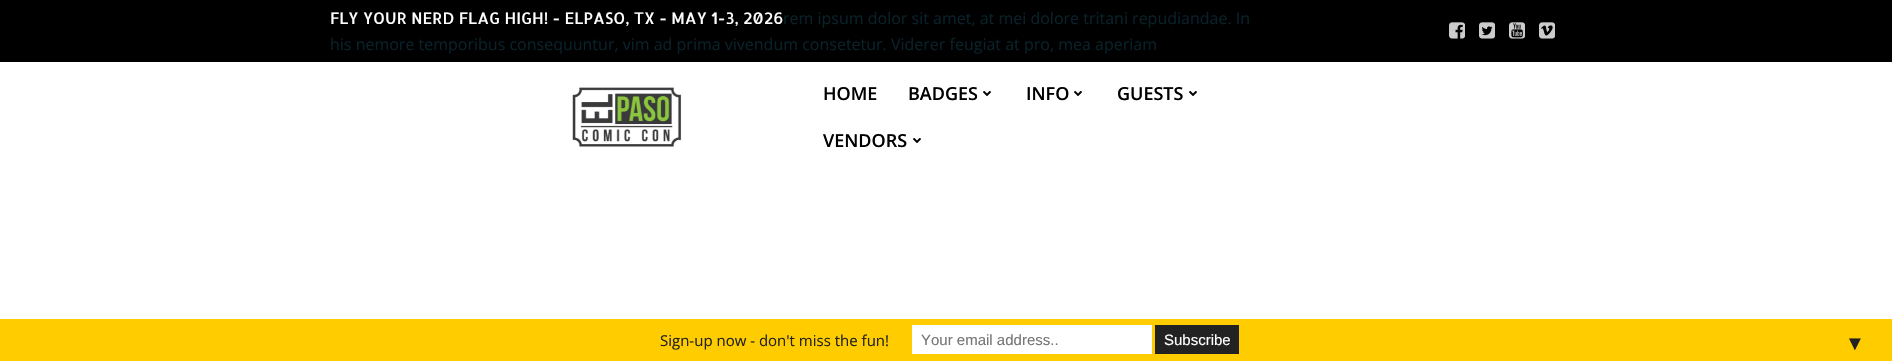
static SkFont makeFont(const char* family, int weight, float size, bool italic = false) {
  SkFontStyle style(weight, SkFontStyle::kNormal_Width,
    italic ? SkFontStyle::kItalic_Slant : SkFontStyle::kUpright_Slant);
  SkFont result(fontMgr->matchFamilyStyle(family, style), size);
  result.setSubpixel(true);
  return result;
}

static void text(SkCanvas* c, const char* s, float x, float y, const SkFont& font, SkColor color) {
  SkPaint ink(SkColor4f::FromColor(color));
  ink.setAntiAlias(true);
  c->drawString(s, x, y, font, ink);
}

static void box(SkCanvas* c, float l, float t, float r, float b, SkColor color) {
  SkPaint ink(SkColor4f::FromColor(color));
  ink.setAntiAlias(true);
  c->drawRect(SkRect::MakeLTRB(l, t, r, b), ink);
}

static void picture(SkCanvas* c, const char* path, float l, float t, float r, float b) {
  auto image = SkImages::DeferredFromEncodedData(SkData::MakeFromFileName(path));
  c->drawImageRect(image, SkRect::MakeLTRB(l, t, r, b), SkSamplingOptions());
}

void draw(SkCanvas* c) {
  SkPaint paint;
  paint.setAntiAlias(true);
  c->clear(0xffffffff);
  box(c, 0, 0, 1892, 62, 0xff000000);
  SkFont face1 = makeFont("Allerta", 400, 16);
  text(c, "FLY YOUR NERD FLAG HIGH! - ELPASO, TX - MAY 1-3, 2026", 330, 24, face1, 0xffffffff);
  SkFont face2 = makeFont("Open Sans", 400, 16);
  text(c, "rem ipsum dolor sit amet, at mei dolore tritani repudiandae. In", 783, 24, face2, 0xff09212a);
  text(c, "his nemore temporibus consequuntur, vim ad prima vivendum consetetur. Viderer feugiat at pro, mea aperiam", 330, 50, face2, 0xff09212a);
  picture(c, "img_01.png", 1449, 22, 1465, 39);
  picture(c, "img_02.png", 1479, 22, 1495, 39);
  picture(c, "img_03.png", 1509, 22, 1525, 39);
  picture(c, "img_04.png", 1539, 22, 1555, 39);
  picture(c, "img_05.png", 572, 87, 682, 147);
  SkFont face3 = makeFont("Open Sans", 600, 18);
  text(c, "HOME", 823, 100, face3, 0xff000000);
  text(c, "BADGES", 908, 100, face3, 0xff000000);
  picture(c, "img_06.png", 983, 91, 991, 96);
  text(c, "INFO", 1026, 100, face3, 0xff000000);
  picture(c, "img_06.png", 1074, 91, 1082, 96);
  text(c, "GUESTS", 1117, 100, face3, 0xff000000);
  picture(c, "img_06.png", 1189, 91, 1197, 96);
  text(c, "VENDORS", 823, 147, face3, 0xff000000);
  picture(c, "img_06.png", 913, 138, 921, 143);
  box(c, 0, 319, 1892, 361, 0xffffcc00);
  SkFont face4 = makeFont("Open Sans", 400, 15);
  text(c, "Sign-up now - don't miss the fun!", 660, 346, face4, 0xff222222);
  box(c, 912, 325, 1152, 354, 0xffffffff);
  SkFont face5 = makeFont("Liberation Sans", 400, 15);
  text(c, "Your email address..", 921, 345, face5, 0xff757575);
  box(c, 1155, 325, 1239, 354, 0xff222222);
  text(c, "Subscribe", 1164, 345, face5, 0xffffffff);
  SkFont face6 = makeFont("Liberation Serif", 400, 20);
  text(c, "▼", 1845, 350, face6, 0xff222222);
}
